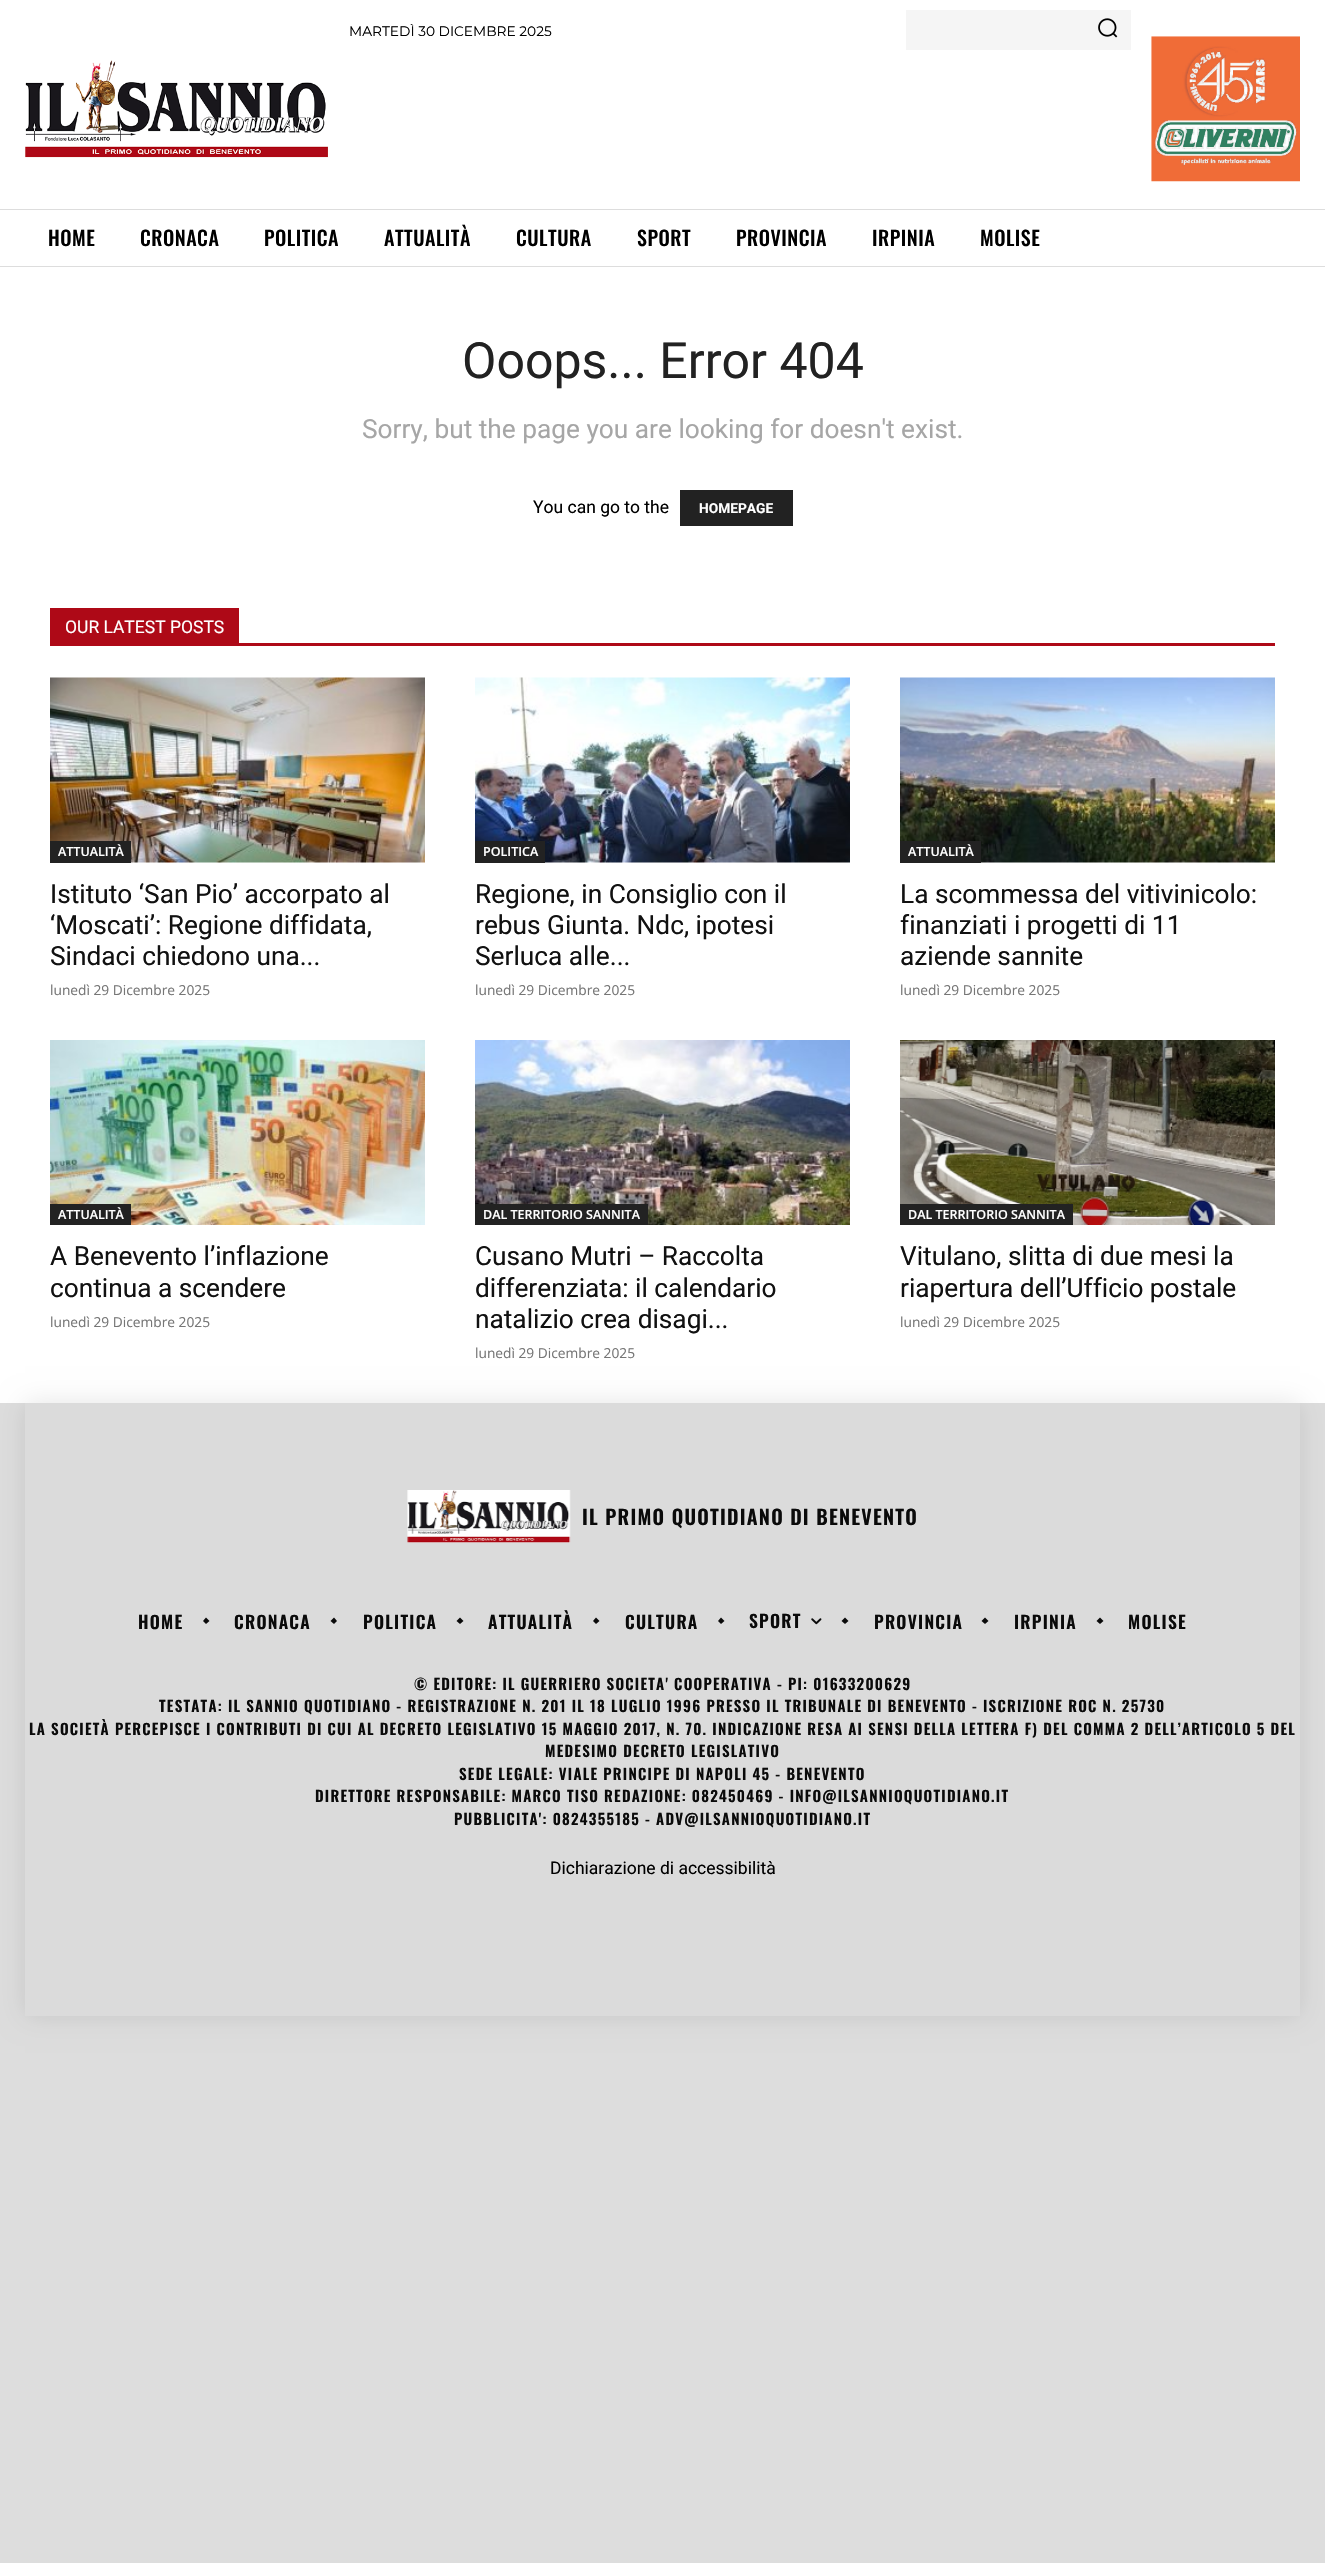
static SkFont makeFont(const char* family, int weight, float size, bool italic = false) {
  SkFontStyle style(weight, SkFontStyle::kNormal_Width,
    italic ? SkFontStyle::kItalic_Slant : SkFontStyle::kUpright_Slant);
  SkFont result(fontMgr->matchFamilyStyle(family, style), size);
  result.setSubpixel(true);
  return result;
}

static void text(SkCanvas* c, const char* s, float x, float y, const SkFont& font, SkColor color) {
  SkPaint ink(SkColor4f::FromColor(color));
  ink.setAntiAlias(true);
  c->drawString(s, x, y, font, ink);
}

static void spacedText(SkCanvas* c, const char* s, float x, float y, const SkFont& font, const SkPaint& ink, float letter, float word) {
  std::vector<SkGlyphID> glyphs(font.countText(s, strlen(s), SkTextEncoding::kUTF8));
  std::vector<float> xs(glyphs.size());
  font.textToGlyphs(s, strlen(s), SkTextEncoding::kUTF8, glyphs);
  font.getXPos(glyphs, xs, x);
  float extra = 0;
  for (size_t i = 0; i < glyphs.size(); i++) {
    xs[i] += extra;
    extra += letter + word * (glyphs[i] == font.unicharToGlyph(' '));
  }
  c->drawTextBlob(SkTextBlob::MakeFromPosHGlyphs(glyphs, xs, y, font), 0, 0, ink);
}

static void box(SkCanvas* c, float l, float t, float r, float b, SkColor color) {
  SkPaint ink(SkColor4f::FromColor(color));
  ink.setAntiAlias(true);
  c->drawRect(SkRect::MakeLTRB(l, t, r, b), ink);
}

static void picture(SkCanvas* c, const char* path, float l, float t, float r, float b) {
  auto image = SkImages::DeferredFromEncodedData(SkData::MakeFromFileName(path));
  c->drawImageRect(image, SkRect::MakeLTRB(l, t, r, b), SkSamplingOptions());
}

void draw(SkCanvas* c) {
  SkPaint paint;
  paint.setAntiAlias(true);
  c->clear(0xffdddddd);
  box(c, 0, 0, 1325, 1403, 0xffffffff);
  SkFont face1 = makeFont("Montserrat", 100, 13.75f);
  text(c, "MARTEDÌ 30 DICEMBRE 2025", 349, 36, face1, 0xff000000);
  box(c, 906, 10, 1131, 50, 0xfff5f5f5);
  picture(c, "img_01.png", 1098, 18, 1118, 38);
  picture(c, "img_02.png", 25, 60, 328, 158);
  picture(c, "img_03.png", 1151, 36, 1300, 182);
  box(c, 0, 209, 1325, 210, 0xffdddddd);
  box(c, 0, 266, 1325, 267, 0xffdddddd);
  SkFont face2 = makeFont("Oswald", 500, 20);
  paint.setColor(0xff000000);
  spacedText(c, "HOME", 48, 246, face2, paint, 0.5f, 0);
  spacedText(c, "CRONACA", 140, 246, face2, paint, 0.5f, 0);
  spacedText(c, "POLITICA", 264, 246, face2, paint, 0.5f, 0);
  spacedText(c, "ATTUALITÀ", 384, 246, face2, paint, 0.5f, 0);
  spacedText(c, "CULTURA", 516, 246, face2, paint, 0.5f, 0);
  spacedText(c, "SPORT", 637, 246, face2, paint, 0.5f, 0);
  spacedText(c, "PROVINCIA", 736, 246, face2, paint, 0.5f, 0);
  spacedText(c, "IRPINIA", 872, 246, face2, paint, 0.5f, 0);
  spacedText(c, "MOLISE", 980, 246, face2, paint, 0.5f, 0);
  SkFont face3 = makeFont("Roboto", 400, 50);
  text(c, "Ooops... Error 404", 462, 378, face3, 0xff222222);
  SkFont face4 = makeFont("Roboto", 400, 26.25f);
  text(c, "Sorry, but the page you are looking for doesn't exist.", 362, 438, face4, 0xffa6a6a6);
  SkFont face5 = makeFont("Roboto", 400, 17.5f);
  text(c, "You can go to the", 533, 513, face5, 0xff000000);
  box(c, 680, 490, 793, 526, 0xff222222);
  SkFont face6 = makeFont("Roboto", 700, 13.75f);
  text(c, "HOMEPAGE", 699, 513, face6, 0xffffffff);
  box(c, 50, 643, 1275, 646, 0xffae0917);
  box(c, 50, 608, 239, 643, 0xffae0917);
  text(c, "OUR LATEST POSTS", 65, 633, face5, 0xffffffff);
  picture(c, "img_04.png", 50, 677, 425, 863);
  box(c, 50, 841, 131, 863, 0xff222222);
  SkFont face7 = makeFont("Open Sans", 600, 12.5f);
  text(c, "ATTUALITÀ", 58, 856, face7, 0xffffffff);
  text(c, "Istituto ‘San Pio’ accorpato al", 50, 903, face4, 0xff111111);
  text(c, "‘Moscati’: Regione diffidata,", 50, 934, face4, 0xff111111);
  text(c, "Sindaci chiedono una...", 50, 965, face4, 0xff111111);
  SkFont face8 = makeFont("Open Sans", 400, 13.75f);
  text(c, "lunedì 29 Dicembre 2025", 50, 995, face8, 0xff767676);
  picture(c, "img_05.png", 475, 677, 850, 863);
  box(c, 475, 841, 545, 863, 0xff222222);
  text(c, "POLITICA", 483, 856, face7, 0xffffffff);
  text(c, "Regione, in Consiglio con il", 475, 903, face4, 0xff111111);
  text(c, "rebus Giunta. Ndc, ipotesi", 475, 934, face4, 0xff111111);
  text(c, "Serluca alle...", 475, 965, face4, 0xff111111);
  text(c, "lunedì 29 Dicembre 2025", 475, 995, face8, 0xff767676);
  picture(c, "img_06.png", 900, 677, 1275, 863);
  box(c, 900, 841, 981, 863, 0xff222222);
  text(c, "ATTUALITÀ", 908, 856, face7, 0xffffffff);
  text(c, "La scommessa del vitivinicolo:", 900, 903, face4, 0xff111111);
  text(c, "finanziati i progetti di 11", 900, 934, face4, 0xff111111);
  text(c, "aziende sannite", 900, 965, face4, 0xff111111);
  text(c, "lunedì 29 Dicembre 2025", 900, 995, face8, 0xff767676);
  picture(c, "img_07.png", 50, 1040, 425, 1225);
  box(c, 50, 1204, 131, 1225, 0xff222222);
  text(c, "ATTUALITÀ", 58, 1219, face7, 0xffffffff);
  text(c, "A Benevento l’inflazione", 50, 1265, face4, 0xff111111);
  text(c, "continua a scendere", 50, 1297, face4, 0xff111111);
  text(c, "lunedì 29 Dicembre 2025", 50, 1327, face8, 0xff767676);
  picture(c, "img_08.png", 475, 1040, 850, 1225);
  box(c, 475, 1204, 648, 1225, 0xff222222);
  text(c, "DAL TERRITORIO SANNITA", 483, 1219, face7, 0xffffffff);
  text(c, "Cusano Mutri – Raccolta", 475, 1265, face4, 0xff111111);
  text(c, "differenziata: il calendario", 475, 1297, face4, 0xff111111);
  text(c, "natalizio crea disagi...", 475, 1328, face4, 0xff111111);
  text(c, "lunedì 29 Dicembre 2025", 475, 1358, face8, 0xff767676);
  picture(c, "img_09.png", 900, 1040, 1275, 1225);
  box(c, 900, 1204, 1073, 1225, 0xff222222);
  text(c, "DAL TERRITORIO SANNITA", 908, 1219, face7, 0xffffffff);
  text(c, "Vitulano, slitta di due mesi la", 900, 1265, face4, 0xff111111);
  text(c, "riapertura dell’Ufficio postale", 900, 1297, face4, 0xff111111);
  text(c, "lunedì 29 Dicembre 2025", 900, 1327, face8, 0xff767676);
  paint.setColor(0x1a000000);
  paint.setMaskFilter(SkMaskFilter::MakeBlur(kNormal_SkBlurStyle, 12.5f));
  c->drawRect(SkRect::MakeLTRB(25, 1403, 1300, 2016), paint);
  paint.setMaskFilter(nullptr);
  box(c, 25, 1403, 1300, 2016, 0xffdbdbdb);
  picture(c, "img_10.png", 407, 1490, 571, 1543);
  SkFont face9 = makeFont("Oswald", 600, 20);
  paint.setColor(0xff0a0a0a);
  spacedText(c, "IL PRIMO QUOTIDIANO DI BENEVENTO", 582, 1525, face9, paint, 1.25f, 0);
  SkFont face10 = makeFont("Oswald", 600, 17.5f);
  spacedText(c, "HOME", 138, 1629, face10, paint, 1.25f, 0);
  c->drawPath(SkPathBuilder().moveTo(209.5f, 1621).lineTo(206, 1624).lineTo(203, 1621).lineTo(206, 1617.5f).close().detach(), paint);
  spacedText(c, "CRONACA", 234, 1629, face10, paint, 1.25f, 0);
  c->drawPath(SkPathBuilder().moveTo(337, 1621).lineTo(334, 1624).lineTo(330.5f, 1621).lineTo(334, 1617.5f).close().detach(), paint);
  spacedText(c, "POLITICA", 363, 1629, face10, paint, 1.25f, 0);
  c->drawPath(SkPathBuilder().moveTo(463.5f, 1621).lineTo(460, 1624).lineTo(456.5f, 1621).lineTo(460, 1617.5f).close().detach(), paint);
  spacedText(c, "ATTUALITÀ", 488, 1629, face10, paint, 1.25f, 0);
  c->drawPath(SkPathBuilder().moveTo(599.5f, 1621).lineTo(596, 1624).lineTo(593, 1621).lineTo(596, 1617.5f).close().detach(), paint);
  spacedText(c, "CULTURA", 625, 1629, face10, paint, 1.25f, 0);
  c->drawPath(SkPathBuilder().moveTo(724.5f, 1621).lineTo(721, 1624).lineTo(718, 1621).lineTo(721, 1617.5f).close().detach(), paint);
  spacedText(c, "SPORT", 749, 1628, face10, paint, 1.25f, 0);
  picture(c, "img_11.png", 811, 1618, 822, 1625);
  c->drawPath(SkPathBuilder().moveTo(848.5f, 1621).lineTo(845, 1624).lineTo(841.5f, 1621).lineTo(845, 1617.5f).close().detach(), paint);
  spacedText(c, "PROVINCIA", 874, 1629, face10, paint, 1.25f, 0);
  c->drawPath(SkPathBuilder().moveTo(988.5f, 1621).lineTo(985, 1624).lineTo(981.5f, 1621).lineTo(985, 1617.5f).close().detach(), paint);
  spacedText(c, "IRPINIA", 1014, 1629, face10, paint, 1.25f, 0);
  c->drawPath(SkPathBuilder().moveTo(1103.5f, 1621).lineTo(1100, 1624).lineTo(1096.5f, 1621).lineTo(1100, 1617.5f).close().detach(), paint);
  spacedText(c, "MOLISE", 1128, 1629, face10, paint, 1.25f, 0);
  SkFont face11 = makeFont("Oswald", 600, 15);
  spacedText(c, "© EDITORE: IL GUERRIERO SOCIETA' COOPERATIVA - PI: 01633200629", 414, 1690, face11, paint, 1.25f, 0);
  spacedText(c, "TESTATA: IL SANNIO QUOTIDIANO - REGISTRAZIONE N. 201 IL 18 LUGLIO 1996 PRESSO IL TRIBUNALE DI BENEVENTO - ISCRIZIONE ROC N. 25730", 159, 1712, face11, paint, 1.25f, 0);
  spacedText(c, "LA SOCIETÀ PERCEPISCE I CONTRIBUTI DI CUI AL DECRETO LEGISLATIVO 15 MAGGIO 2017, N. 70. INDICAZIONE RESA AI SENSI DELLA LETTERA F) DEL COMMA 2 DELL’ARTICOLO 5 DEL", 29, 1735, face11, paint, 1.25f, 0);
  spacedText(c, "MEDESIMO DECRETO LEGISLATIVO", 545, 1757, face11, paint, 1.25f, 0);
  spacedText(c, "SEDE LEGALE: VIALE PRINCIPE DI NAPOLI 45 - BENEVENTO", 459, 1780, face11, paint, 1.25f, 0);
  spacedText(c, "DIRETTORE RESPONSABILE: MARCO TISO REDAZIONE: 082450469 - INFO@ILSANNIOQUOTIDIANO.IT", 315, 1802, face11, paint, 1.25f, 0);
  spacedText(c, "PUBBLICITA': 0824355185 - ADV@ILSANNIOQUOTIDIANO.IT", 454, 1825, face11, paint, 1.25f, 0);
  text(c, "Dichiarazione di accessibilità", 550, 1874, face5, 0xff000000);
}
